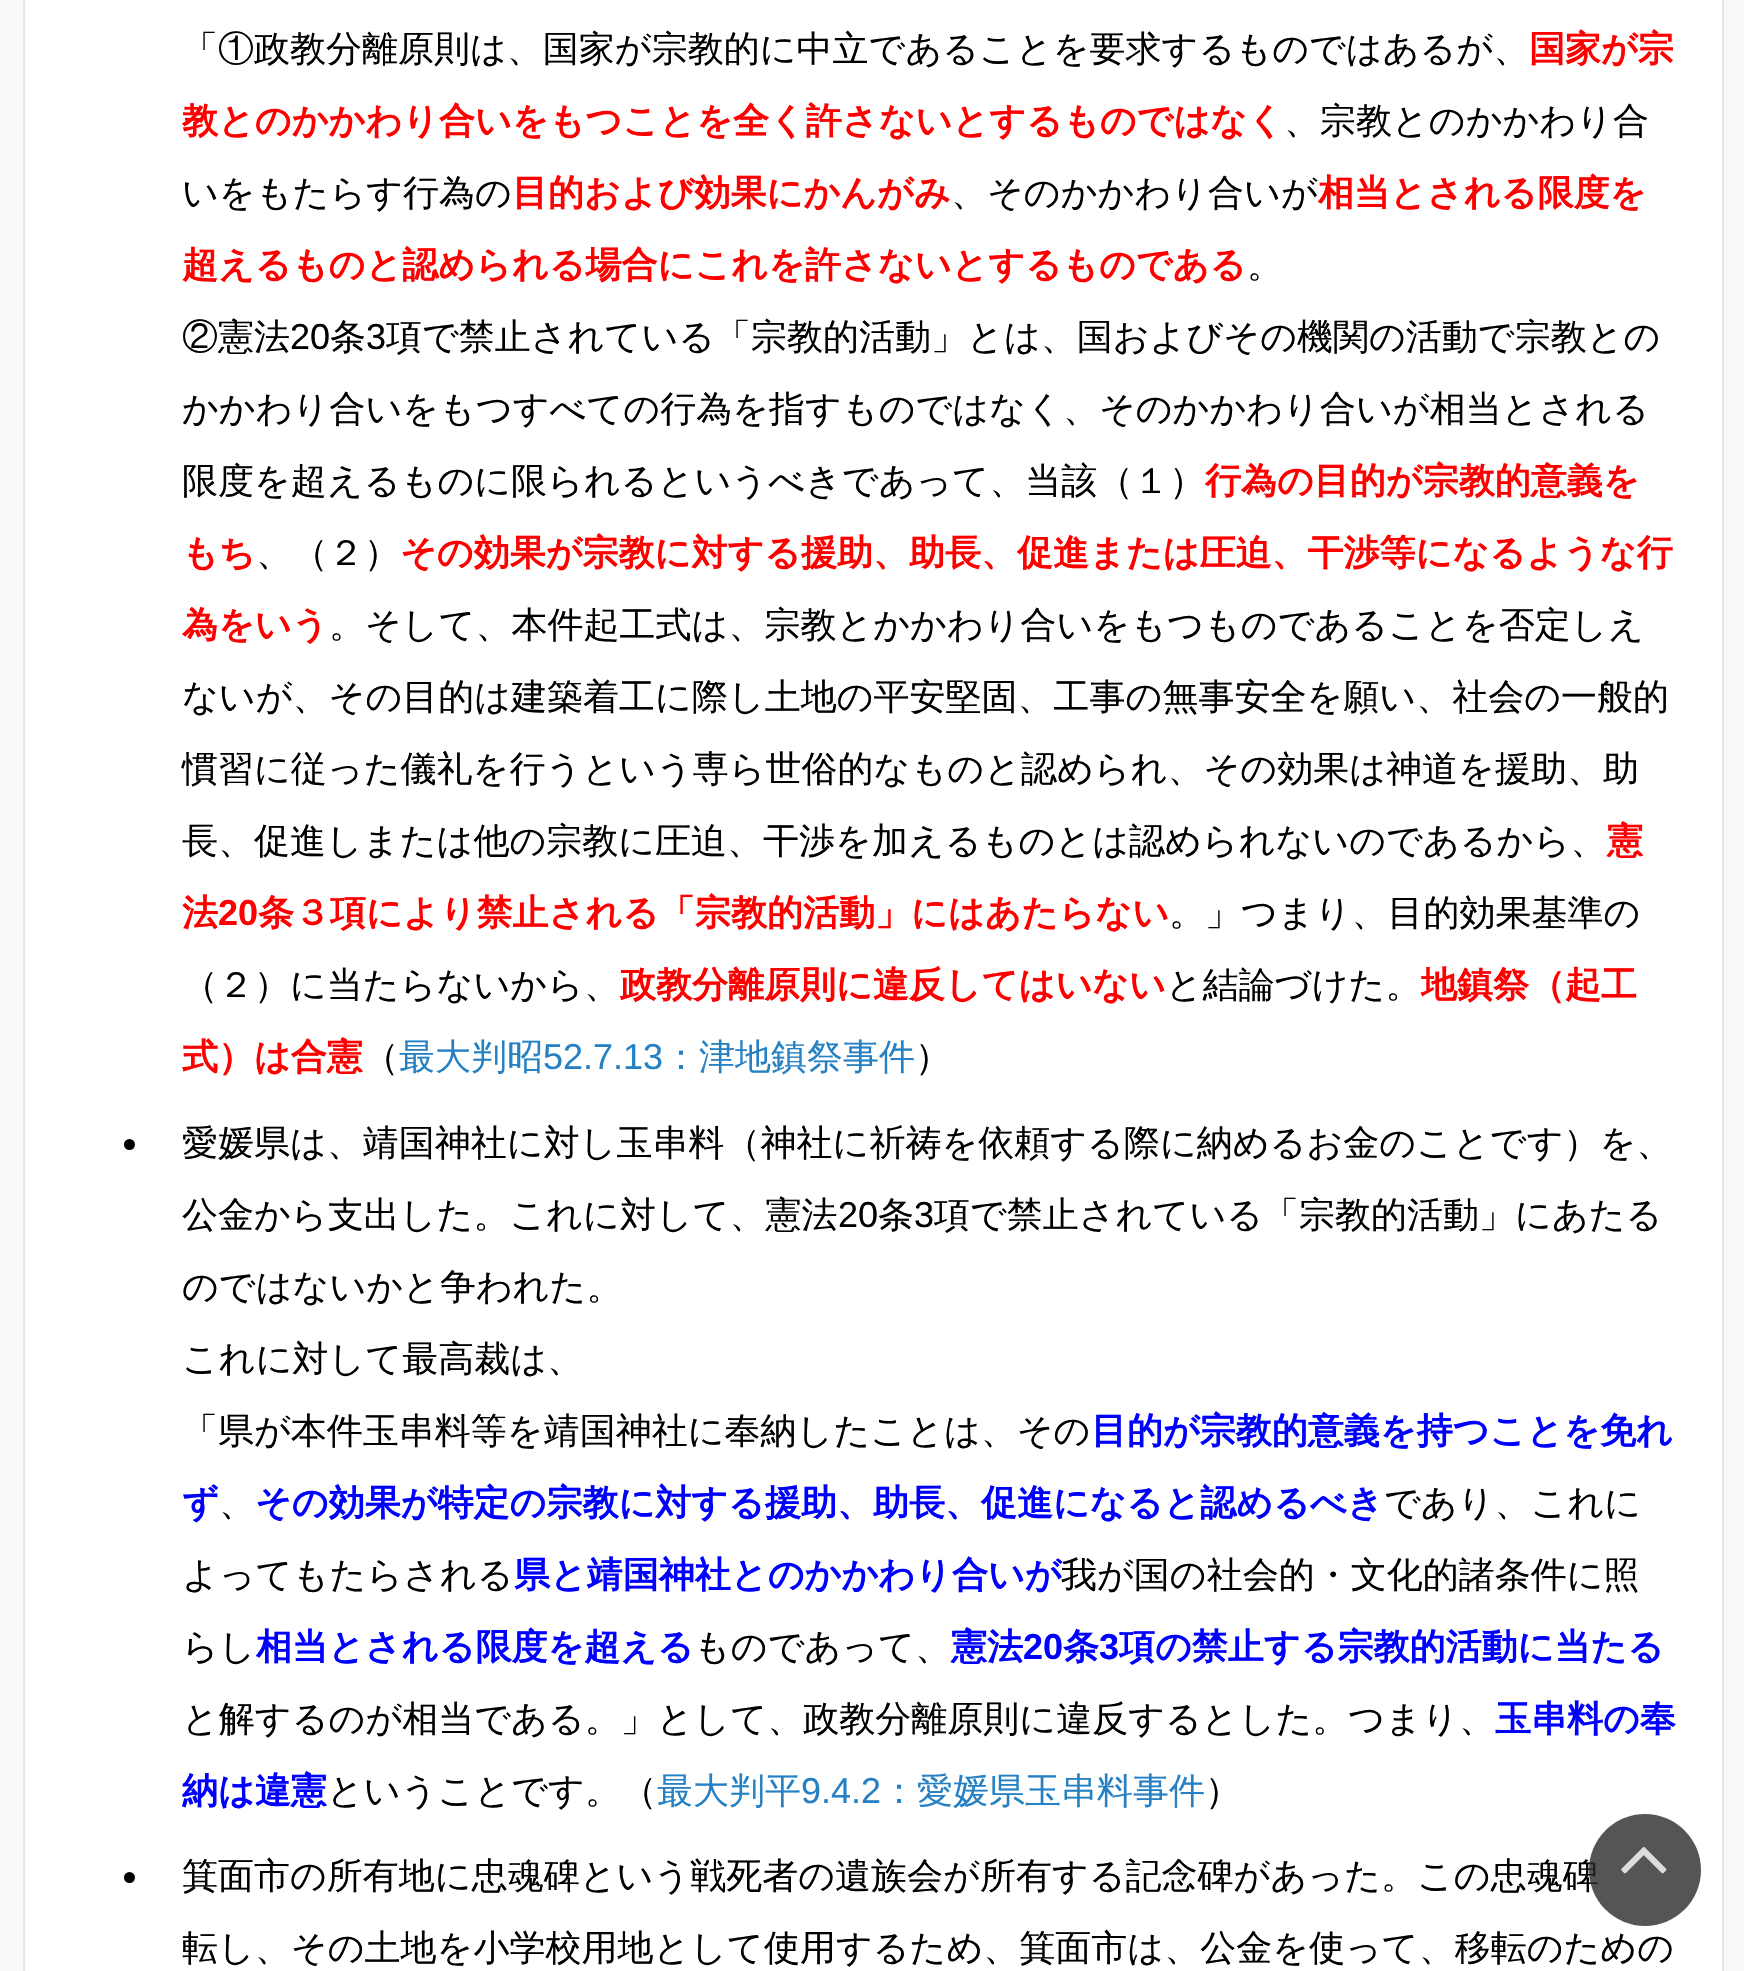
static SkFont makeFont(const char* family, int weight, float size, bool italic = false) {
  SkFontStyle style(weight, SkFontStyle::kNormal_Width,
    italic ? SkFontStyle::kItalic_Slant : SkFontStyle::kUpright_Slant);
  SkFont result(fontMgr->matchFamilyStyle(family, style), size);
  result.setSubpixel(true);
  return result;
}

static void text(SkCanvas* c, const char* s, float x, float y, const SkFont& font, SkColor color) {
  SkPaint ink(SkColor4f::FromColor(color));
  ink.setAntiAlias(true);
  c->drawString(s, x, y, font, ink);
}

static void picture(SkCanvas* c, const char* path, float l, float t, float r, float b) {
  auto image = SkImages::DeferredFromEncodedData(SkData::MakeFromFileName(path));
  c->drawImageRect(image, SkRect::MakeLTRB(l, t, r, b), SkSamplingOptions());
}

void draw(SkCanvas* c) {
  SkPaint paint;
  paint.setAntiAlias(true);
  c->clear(0xfff9f9f9);
  paint.setColor(0xffffffff);
  c->drawRect(SkRect::MakeLTRB(24, -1, 1723, 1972), paint);
  paint.setStyle(SkPaint::kStroke_Style);
  paint.setStrokeWidth(2);
  paint.setColor(0xffe5e5e5);
  c->drawRect(SkRect::MakeLTRB(24, -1, 1723, 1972), paint);
  SkFont face1 = makeFont("WenQuanYi Zen Hei", 500, 36);
  text(c, "「①政教分離原則は、国家が宗教的に中立であることを要求するものではあるが、", 182, 61, face1, 0xff000000);
  SkFont face2 = makeFont("WenQuanYi Zen Hei", 700, 36);
  text(c, "国家が宗", 1529, 61, face2, 0xffff0000);
  text(c, "教とのかかわり合いをもつことを全く許さないとするものではなく", 182, 133, face2, 0xffff0000);
  text(c, "、宗教とのかかわり合", 1284, 133, face1, 0xff000000);
  text(c, "いをもたらす行為の", 182, 205, face1, 0xff000000);
  text(c, "目的および効果にかんがみ", 512, 205, face2, 0xffff0000);
  text(c, "、そのかかわり合いが", 951, 205, face1, 0xff000000);
  text(c, "相当とされる限度を", 1318, 205, face2, 0xffff0000);
  text(c, "超えるものと認められる場合にこれを許さないとするものである", 182, 277, face2, 0xffff0000);
  text(c, "。", 1247, 277, face1, 0xff000000);
  text(c, "②憲法", 182, 349, face1, 0xff000000);
  SkFont face3 = makeFont("Liberation Sans", 400, 36);
  text(c, "20", 290, 349, face3, 0xff000000);
  text(c, "条", 330, 349, face1, 0xff000000);
  text(c, "3", 366, 349, face3, 0xff000000);
  text(c, "項で禁止されている「宗教的活動」とは、国およびその機関の活動で宗教との", 386, 349, face1, 0xff000000);
  text(c, "かかわり合いをもつすべての行為を指すものではなく、そのかかわり合いが相当とされる", 182, 421, face1, 0xff000000);
  text(c, "限度を超えるものに限られるというべきであって、当該（１）", 182, 493, face1, 0xff000000);
  text(c, "行為の目的が宗教的意義を", 1205, 493, face2, 0xffff0000);
  text(c, "もち", 182, 565, face2, 0xffff0000);
  text(c, "、（２）", 256, 565, face1, 0xff000000);
  text(c, "その効果が宗教に対する援助、助長、促進または圧迫、干渉等になるような行", 400, 565, face2, 0xffff0000);
  text(c, "為をいう", 182, 637, face2, 0xffff0000);
  text(c, "。そして、本件起工式は、宗教とかかわり合いをもつものであることを否定しえ", 329, 637, face1, 0xff000000);
  text(c, "ないが、その目的は建築着工に際し土地の平安堅固、工事の無事安全を願い、社会の一般的", 182, 709, face1, 0xff000000);
  text(c, "慣習に従った儀礼を行うという専ら世俗的なものと認められ、その効果は神道を援助、助", 182, 781, face1, 0xff000000);
  text(c, "長、促進しまたは他の宗教に圧迫、干渉を加えるものとは認められないのであるから、", 182, 853, face1, 0xff000000);
  text(c, "憲", 1607, 853, face2, 0xffff0000);
  text(c, "法", 182, 925, face2, 0xffff0000);
  SkFont face4 = makeFont("Liberation Sans", 700, 36);
  text(c, "20", 218, 925, face4, 0xffff0000);
  text(c, "条３項により禁止される「宗教的活動」にはあたらない", 258, 925, face2, 0xffff0000);
  text(c, "。」つまり、目的効果基準の", 1169, 925, face1, 0xff000000);
  text(c, "（２）に当たらないから、", 182, 997, face1, 0xff000000);
  text(c, "政教分離原則に違反してはいない", 620, 997, face2, 0xffff0000);
  text(c, "と結論づけた。", 1166, 997, face1, 0xff000000);
  text(c, "地鎮祭（起工", 1421, 997, face2, 0xffff0000);
  text(c, "式）は合憲", 182, 1069, face2, 0xffff0000);
  text(c, "（", 363, 1069, face1, 0xff000000);
  text(c, "最大判昭", 399, 1069, face1, 0xff2581c4);
  text(c, "52.7.13", 543, 1069, face3, 0xff2581c4);
  text(c, "：津地鎮祭事件", 663, 1069, face1, 0xff2581c4);
  text(c, "）", 915, 1069, face1, 0xff000000);
  paint.setStyle(SkPaint::kFill_Style);
  paint.setColor(0xff000000);
  c->drawCircle(129.5f, 1144.5f, 5.5f, paint);
  text(c, "愛媛県は、靖国神社に対し玉串料（神社に祈祷を依頼する際に納めるお金のことです）を、", 182, 1155, face1, 0xff000000);
  text(c, "公金から支出した。これに対して、憲法", 182, 1227, face1, 0xff000000);
  text(c, "20", 838, 1227, face3, 0xff000000);
  text(c, "条", 878, 1227, face1, 0xff000000);
  text(c, "3", 914, 1227, face3, 0xff000000);
  text(c, "項で禁止されている「宗教的活動」にあたる", 934, 1227, face1, 0xff000000);
  text(c, "のではないかと争われた。", 182, 1299, face1, 0xff000000);
  text(c, "これに対して最高裁は、", 182, 1371, face1, 0xff000000);
  text(c, "「県が本件玉串料等を靖国神社に奉納したことは、その", 182, 1443, face1, 0xff000000);
  text(c, "目的が宗教的意義を持つことを免れ", 1091, 1443, face2, 0xff0000ff);
  text(c, "ず", 182, 1515, face2, 0xff0000ff);
  text(c, "、", 219, 1515, face1, 0xff000000);
  text(c, "その効果が特定の宗教に対する援助、助長、促進になると認めるべき", 255, 1515, face2, 0xff0000ff);
  text(c, "であり、これに", 1384, 1515, face1, 0xff000000);
  text(c, "よってもたらされる", 182, 1587, face1, 0xff000000);
  text(c, "県と靖国神社とのかかわり合いが", 514, 1587, face2, 0xff0000ff);
  text(c, "我が国の社会的・文化的諸条件に照", 1061, 1587, face1, 0xff000000);
  text(c, "らし", 182, 1659, face1, 0xff000000);
  text(c, "相当とされる限度を超える", 256, 1659, face2, 0xff0000ff);
  text(c, "ものであって、", 694, 1659, face1, 0xff000000);
  text(c, "憲法", 951, 1659, face2, 0xff0000ff);
  text(c, "20", 1023, 1659, face4, 0xff0000ff);
  text(c, "条", 1063, 1659, face2, 0xff0000ff);
  text(c, "3", 1099, 1659, face4, 0xff0000ff);
  text(c, "項の禁止する宗教的活動に当たる", 1119, 1659, face2, 0xff0000ff);
  text(c, "と解するのが相当である。」として、政教分離原則に違反するとした。つまり、", 182, 1731, face1, 0xff000000);
  text(c, "玉串料の奉", 1495, 1731, face2, 0xff0000ff);
  text(c, "納は違憲", 182, 1803, face2, 0xff0000ff);
  text(c, "ということです。（", 327, 1803, face1, 0xff000000);
  text(c, "最大判平", 657, 1803, face1, 0xff2581c4);
  text(c, "9.4.2", 801, 1803, face3, 0xff2581c4);
  text(c, "：愛媛県玉串料事件", 881, 1803, face1, 0xff2581c4);
  text(c, "）", 1205, 1803, face1, 0xff000000);
  c->drawCircle(129.5f, 1877.5f, 5.5f, paint);
  text(c, "箕面市の所有地に忠魂碑という戦死者の遺族会が所有する記念碑があった。この忠魂碑", 182, 1888, face1, 0xff000000);
  text(c, "転し、その土地を小学校用地として使用するため、箕面市は、公金を使って、移転のための", 182, 1960, face1, 0xff000000);
  paint.setColor(0xcc2b2b2b);
  c->drawCircle(1645, 1870, 56, paint);
  picture(c, "img_01.png", 1621, 1847, 1667, 1874);
}
